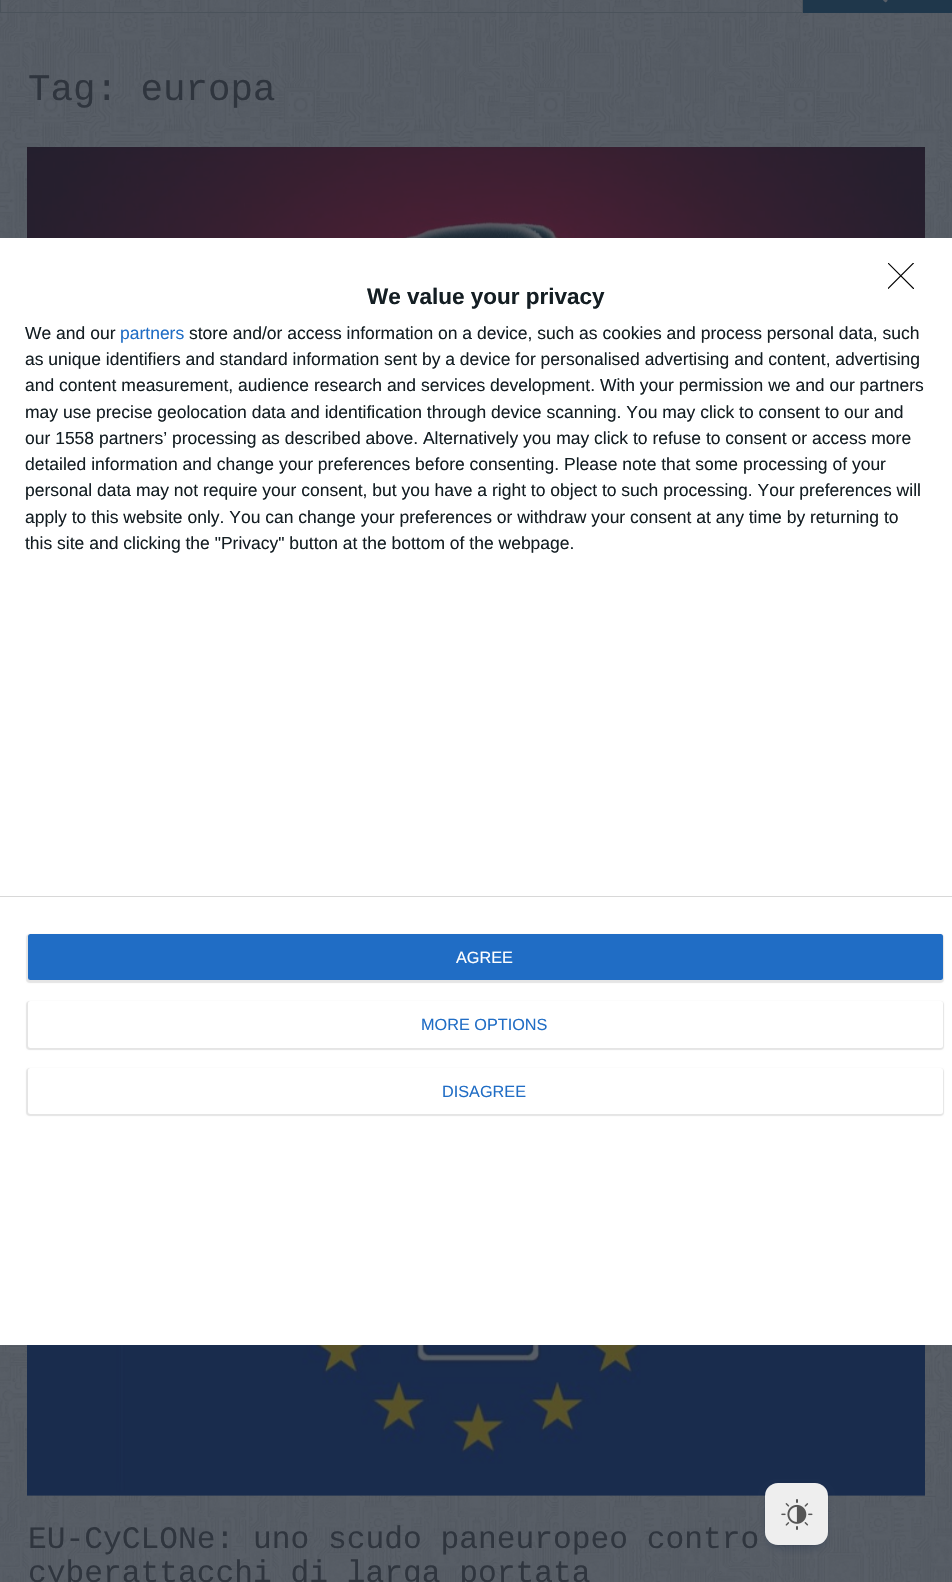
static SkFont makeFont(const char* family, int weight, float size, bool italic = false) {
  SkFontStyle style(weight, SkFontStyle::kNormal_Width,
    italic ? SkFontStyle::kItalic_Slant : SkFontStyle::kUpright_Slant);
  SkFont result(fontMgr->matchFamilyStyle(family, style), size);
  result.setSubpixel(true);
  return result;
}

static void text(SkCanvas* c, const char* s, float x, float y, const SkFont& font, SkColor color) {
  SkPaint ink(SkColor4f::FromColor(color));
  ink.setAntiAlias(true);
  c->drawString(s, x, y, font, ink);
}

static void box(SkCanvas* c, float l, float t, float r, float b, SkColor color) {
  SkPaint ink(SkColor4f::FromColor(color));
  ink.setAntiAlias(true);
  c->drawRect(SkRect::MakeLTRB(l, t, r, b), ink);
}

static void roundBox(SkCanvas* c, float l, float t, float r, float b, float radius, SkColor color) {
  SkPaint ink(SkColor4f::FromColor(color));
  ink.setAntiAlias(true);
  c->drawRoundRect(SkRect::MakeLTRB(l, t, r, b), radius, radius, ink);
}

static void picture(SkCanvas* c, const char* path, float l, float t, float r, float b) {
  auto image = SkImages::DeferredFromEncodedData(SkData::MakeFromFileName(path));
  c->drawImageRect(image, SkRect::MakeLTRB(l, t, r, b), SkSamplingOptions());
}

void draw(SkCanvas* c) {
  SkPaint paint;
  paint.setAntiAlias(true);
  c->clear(0xffffffff);
  picture(c, "img_01.png", 0, 0, 952, 1582);
  paint.setStyle(SkPaint::kStroke_Style);
  paint.setStrokeWidth(1);
  paint.setColor(0xff4b535b);
  c->drawRect(SkRect::MakeLTRB(0.5f, -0.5f, 802.5f, 12.5f), paint);
  box(c, 803, 0, 952, 13, 0xff1f374b);
  picture(c, "img_02.png", 883, 0, 888, 3);
  SkFont face1 = makeFont("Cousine", 400, 37.5f);
  text(c, "Tag: europa", 28, 100, face1, 0xff2f353e);
  picture(c, "img_03.png", 27, 147, 925, 238);
  picture(c, "img_04.png", 27, 1345, 925, 1496);
  SkFont face2 = makeFont("Cousine", 400, 31.25f);
  text(c, "EU-CyCLONe: uno scudo paneuropeo contro", 28, 1548, face2, 0xff2f353e);
  text(c, "cyberattacchi di larga portata", 28, 1582, face2, 0xff2f353e);
  box(c, 0, 238, 952, 1345, 0xffffffff);
  c->save();
  c->clipRect(SkRect::MakeLTRB(888, 263, 914, 289));
  paint.setStrokeWidth(1.1f);
  paint.setStrokeCap(SkPaint::kRound_Cap);
  paint.setStrokeJoin(SkPaint::kRound_Join);
  paint.setColor(0xff000000);
  c->drawPath(SkPathBuilder().moveTo(888, 263).lineTo(913.5f, 288.5f).moveTo(913.5f, 263).lineTo(888, 288.5f).detach(), paint);
  c->restore();
  SkFont face3 = makeFont("Liberation Sans", 700, 22.5f);
  text(c, "We value your privacy", 367, 304, face3, 0xff141e23);
  SkFont face4 = makeFont("Liberation Sans", 400, 17.5f);
  text(c, "We and our", 25, 339, face4, 0xff141e23);
  text(c, "partners", 120, 339, face4, 0xff206dc5);
  text(c, "store and/or access information on a device, such as cookies and process personal data, such", 189, 339, face4, 0xff141e23);
  text(c, "as unique identifiers and standard information sent by a device for personalised advertising and content, advertising", 25, 365, face4, 0xff141e23);
  text(c, "and content measurement, audience research and services development. With your permission we and our partners", 25, 391, face4, 0xff141e23);
  text(c, "may use precise geolocation data and identification through device scanning. You may click to consent to our and", 25, 418, face4, 0xff141e23);
  text(c, "our 1558 partners’ processing as described above. Alternatively you may click to refuse to consent or access more", 25, 444, face4, 0xff141e23);
  text(c, "detailed information and change your preferences before consenting. Please note that some processing of your", 25, 470, face4, 0xff141e23);
  text(c, "personal data may not require your consent, but you have a right to object to such processing. Your preferences will", 25, 496, face4, 0xff141e23);
  text(c, "apply to this website only. You can change your preferences or withdraw your consent at any time by returning to", 25, 523, face4, 0xff141e23);
  text(c, "this site and clicking the \"Privacy\" button at the bottom of the webpage.", 25, 549, face4, 0xff141e23);
  box(c, 0, 896, 952, 897, 0xffd8d8d8);
  paint.setStyle(SkPaint::kFill_Style);
  paint.setColor(0x1a000000);
  paint.setMaskFilter(SkMaskFilter::MakeBlur(kNormal_SkBlurStyle, 0.5f));
  c->drawRoundRect(SkRect::MakeLTRB(26, 934, 944, 983), 4, 4, paint);
  paint.setMaskFilter(nullptr);
  roundBox(c, 28, 934, 943, 980, 2.5f, 0xff206dc5);
  SkFont face5 = makeFont("Liberation Sans", 400, 16.25f);
  text(c, "AGREE", 456, 963, face5, 0xffffffff);
  paint.setMaskFilter(SkMaskFilter::MakeBlur(kNormal_SkBlurStyle, 0.5f));
  c->drawRoundRect(SkRect::MakeLTRB(26, 1001, 944, 1050), 4, 4, paint);
  paint.setMaskFilter(nullptr);
  roundBox(c, 28, 1001, 943, 1048, 2.5f, 0xffffffff);
  text(c, "MORE OPTIONS", 421, 1030, face5, 0xff206dc5);
  paint.setMaskFilter(SkMaskFilter::MakeBlur(kNormal_SkBlurStyle, 0.5f));
  c->drawRoundRect(SkRect::MakeLTRB(26, 1068, 944, 1116), 4, 4, paint);
  paint.setMaskFilter(nullptr);
  roundBox(c, 28, 1068, 943, 1114, 2.5f, 0xffffffff);
  text(c, "DISAGREE", 442, 1097, face5, 0xff206dc5);
  paint.setStyle(SkPaint::kStroke_Style);
  paint.setStrokeWidth(1);
  paint.setStrokeCap(SkPaint::kButt_Cap);
  paint.setStrokeJoin(SkPaint::kMiter_Join);
  paint.setColor(0x14091e42);
  c->drawRoundRect(SkRect::MakeLTRB(764.5f, 1481.5f, 828.5f, 1545.5f), 13.5f, 13.5f, paint);
  paint.setStyle(SkPaint::kFill_Style);
  paint.setColor(0x40091e42);
  paint.setMaskFilter(SkMaskFilter::MakeBlur(kNormal_SkBlurStyle, 5));
  c->drawRoundRect(SkRect::MakeLTRB(768, 1490, 825, 1548), 10, 10, paint);
  paint.setMaskFilter(nullptr);
  roundBox(c, 765, 1483, 828, 1545, 13, 0xffeeeeee);
  picture(c, "img_05.png", 781, 1499, 813, 1530);
}
